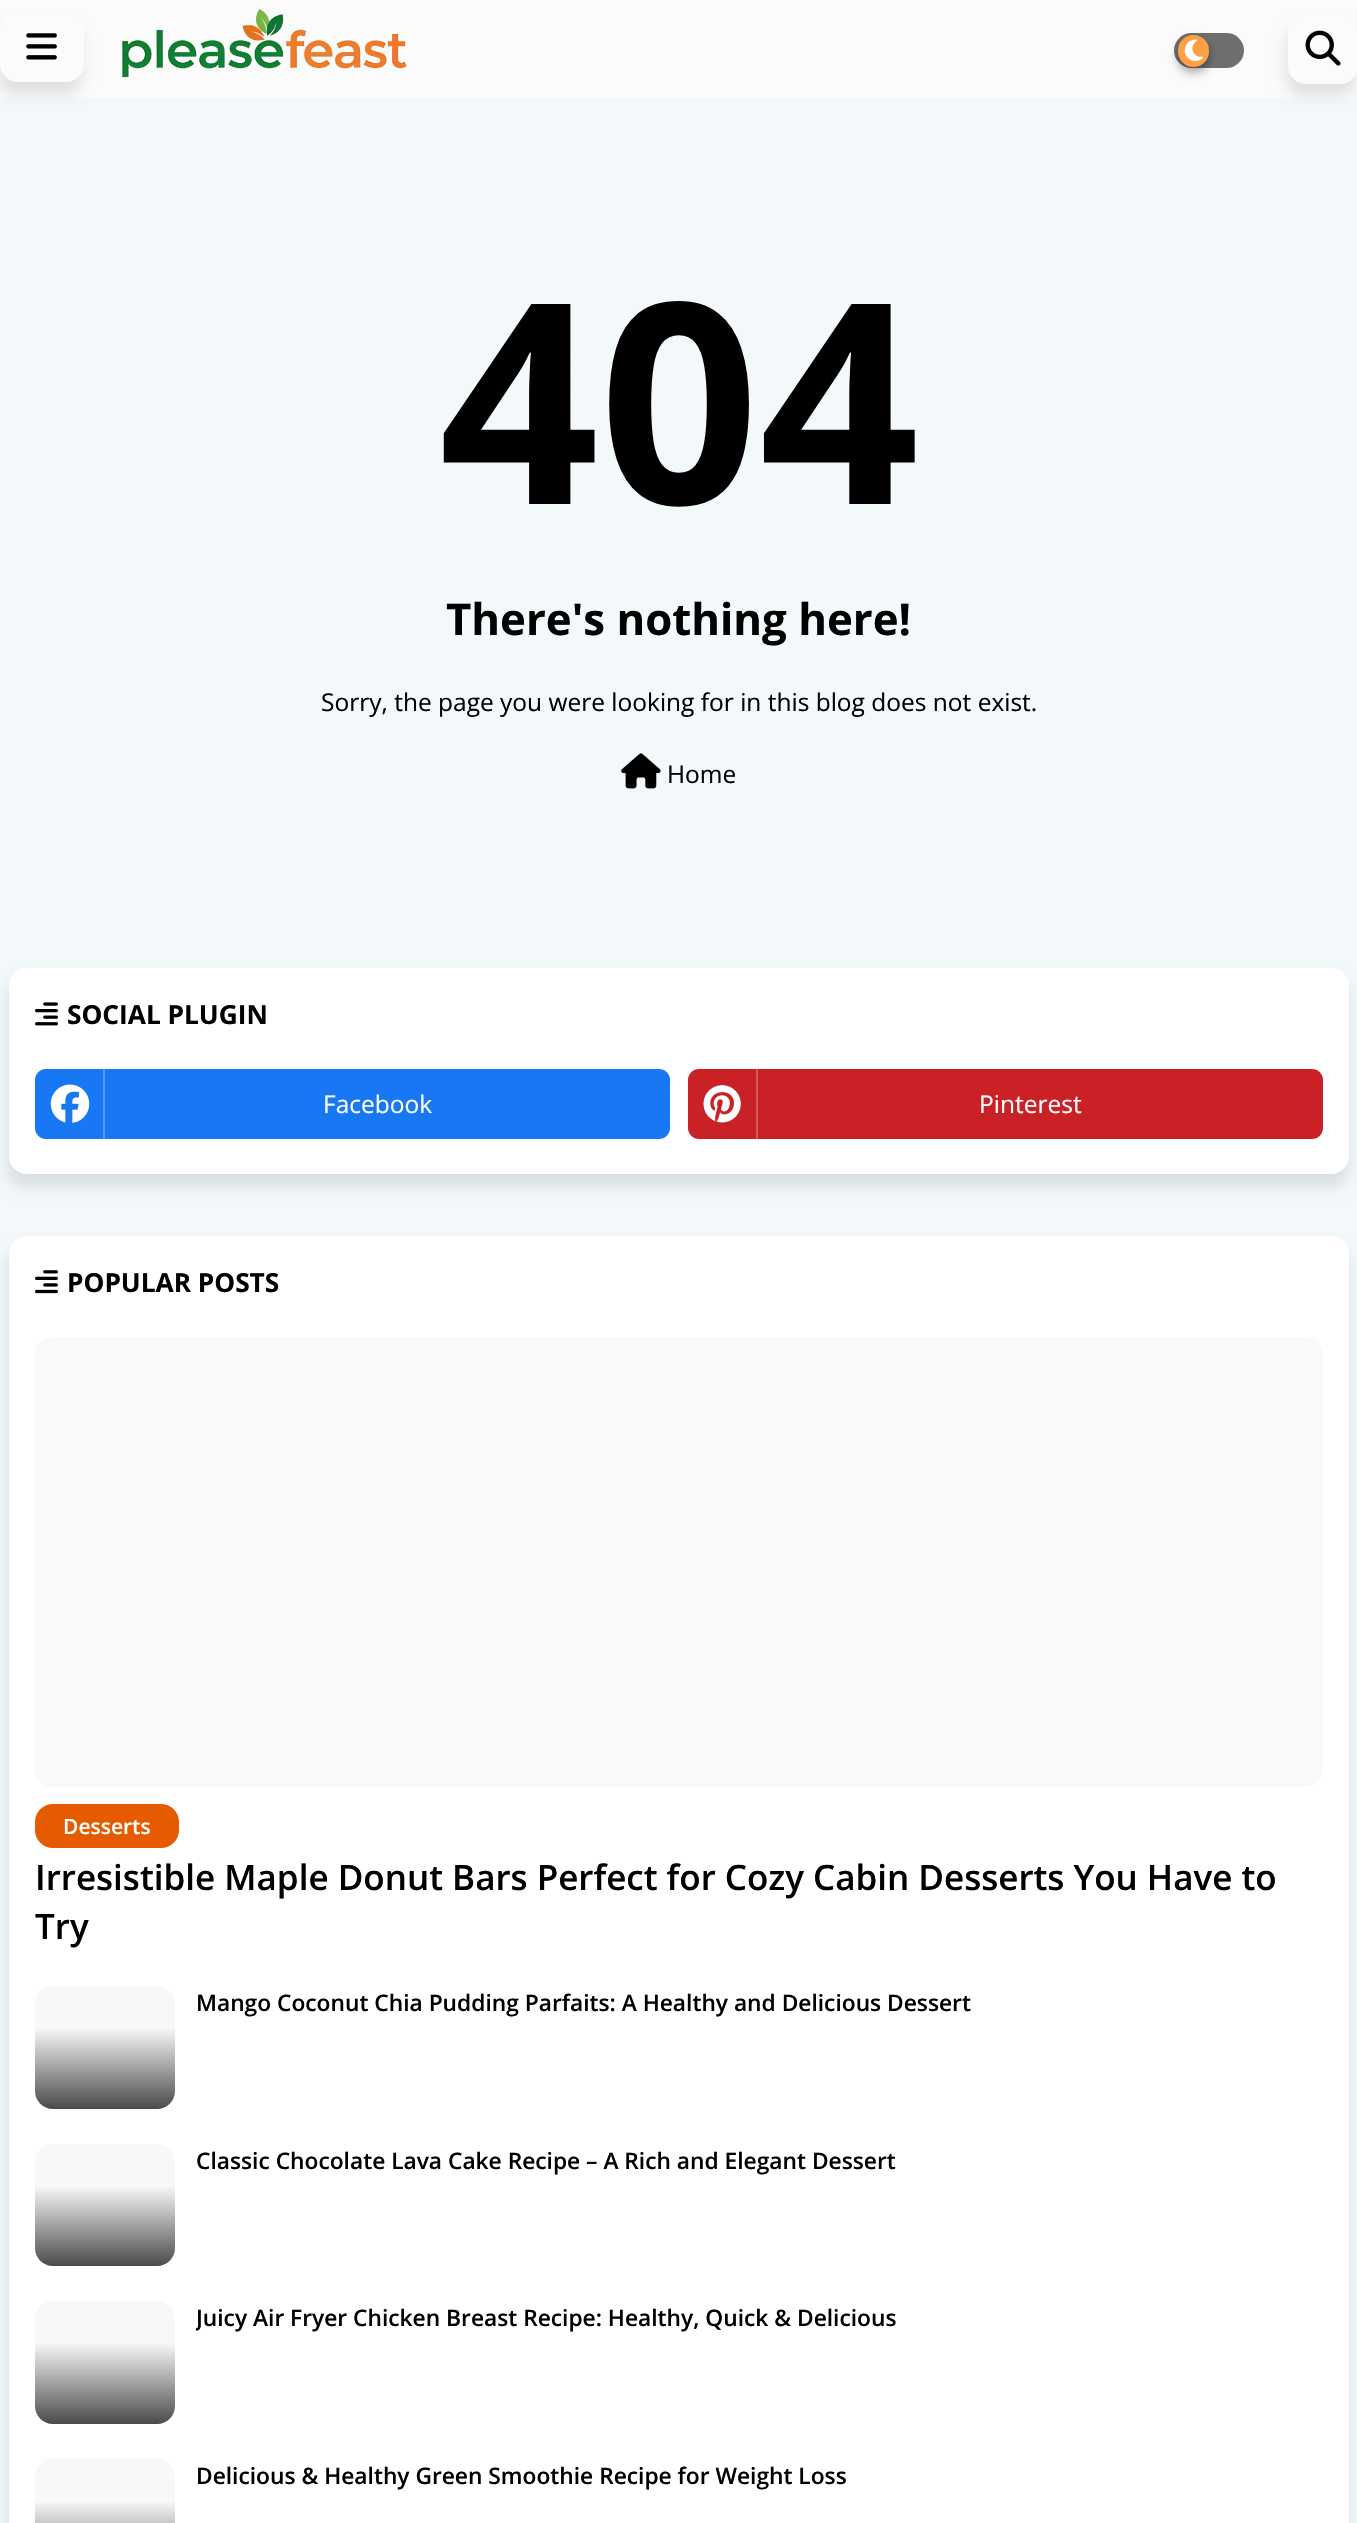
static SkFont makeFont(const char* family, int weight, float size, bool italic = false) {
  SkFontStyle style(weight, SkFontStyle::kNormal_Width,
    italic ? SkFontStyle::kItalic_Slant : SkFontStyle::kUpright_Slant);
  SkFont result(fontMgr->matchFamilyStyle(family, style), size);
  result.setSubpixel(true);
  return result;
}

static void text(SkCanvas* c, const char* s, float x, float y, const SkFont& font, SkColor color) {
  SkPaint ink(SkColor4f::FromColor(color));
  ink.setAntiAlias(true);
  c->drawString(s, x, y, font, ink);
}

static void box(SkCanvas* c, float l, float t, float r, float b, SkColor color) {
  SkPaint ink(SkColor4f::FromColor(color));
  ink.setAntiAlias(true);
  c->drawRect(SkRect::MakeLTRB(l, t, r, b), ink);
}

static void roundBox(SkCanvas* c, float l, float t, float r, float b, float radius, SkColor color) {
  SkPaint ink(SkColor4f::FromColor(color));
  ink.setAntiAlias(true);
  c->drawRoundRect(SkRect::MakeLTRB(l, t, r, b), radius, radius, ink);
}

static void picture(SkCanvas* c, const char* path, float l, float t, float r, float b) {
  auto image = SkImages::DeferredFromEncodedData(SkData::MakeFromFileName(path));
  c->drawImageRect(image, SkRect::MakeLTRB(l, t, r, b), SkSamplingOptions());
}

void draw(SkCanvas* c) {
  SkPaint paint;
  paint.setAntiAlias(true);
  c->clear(0xfff3f8fb);
  box(c, 0, 0, 1357, 98, 0xfffbfbfb);
  c->save();
  c->clipPath(SkPathBuilder(SkPathFillType::kEvenOdd).moveTo(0, 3).lineTo(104, 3).lineTo(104, 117).lineTo(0, 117).close().moveTo(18, 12).lineTo(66, 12).cubicTo(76, 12, 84, 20, 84, 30).lineTo(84, 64).cubicTo(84, 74, 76, 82, 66, 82).lineTo(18, 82).cubicTo(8, 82, 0, 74, 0, 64).lineTo(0, 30).cubicTo(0, 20, 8, 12, 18, 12).close().detach(), true);
  paint.setColor(0x1a000000);
  paint.setMaskFilter(SkMaskFilter::MakeBlur(kNormal_SkBlurStyle, 7));
  c->drawRoundRect(SkRect::MakeLTRB(-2, 25, 82, 95), 18, 18, paint);
  paint.setMaskFilter(nullptr);
  c->restore();
  picture(c, "img_01.png", 26, 33, 57, 60);
  picture(c, "img_02.png", 122, 9, 407, 78);
  roundBox(c, 1174, 33, 1244, 68, 17.5f, 0xff6f6f6f);
  paint.setColor(0x3b000000);
  paint.setMaskFilter(SkMaskFilter::MakeBlur(kNormal_SkBlurStyle, 5));
  c->drawRoundRect(SkRect::MakeLTRB(1178, 40, 1209, 72), 15.5f, 15.5f, paint);
  paint.setMaskFilter(nullptr);
  paint.setColor(0x29000000);
  paint.setMaskFilter(SkMaskFilter::MakeBlur(kNormal_SkBlurStyle, 5));
  c->drawRoundRect(SkRect::MakeLTRB(1178, 40, 1209, 72), 15.5f, 15.5f, paint);
  paint.setMaskFilter(nullptr);
  roundBox(c, 1178, 35, 1209, 67, 15.5f, 0xffff9f43);
  picture(c, "img_03.png", 1184, 39, 1204, 61);
  c->save();
  c->clipPath(SkPathBuilder(SkPathFillType::kEvenOdd).moveTo(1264, 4).lineTo(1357, 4).lineTo(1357, 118).lineTo(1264, 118).close().moveTo(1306, 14).lineTo(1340, 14).cubicTo(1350, 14, 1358, 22, 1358, 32).lineTo(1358, 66).cubicTo(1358, 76, 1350, 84, 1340, 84).lineTo(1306, 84).cubicTo(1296, 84, 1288, 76, 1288, 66).lineTo(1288, 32).cubicTo(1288, 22, 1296, 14, 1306, 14).close().detach(), true);
  paint.setColor(0x1a000000);
  paint.setMaskFilter(SkMaskFilter::MakeBlur(kNormal_SkBlurStyle, 7));
  c->drawRoundRect(SkRect::MakeLTRB(1286, 26, 1356, 96), 18, 18, paint);
  paint.setMaskFilter(nullptr);
  c->restore();
  picture(c, "img_04.png", 1305, 30, 1341, 66);
  SkFont face1 = makeFont("Open Sans", 700, 280);
  text(c, "404", 439, 504, face1, 0xff000000);
  SkFont face2 = makeFont("Open Sans", 700, 43.75f);
  text(c, "There's nothing here!", 446, 635, face2, 0xff000000);
  SkFont face3 = makeFont("Open Sans", 400, 24.5f);
  text(c, "Sorry, the page you were looking for in this blog does not exist.", 321, 711, face3, 0xff000000);
  picture(c, "img_05.png", 621, 753, 661, 789);
  text(c, "Home", 667, 783, face3, 0xff000000);
  paint.setMaskFilter(SkMaskFilter::MakeBlur(kNormal_SkBlurStyle, 7));
  c->drawRoundRect(SkRect::MakeLTRB(7, 980, 1348, 1187), 18, 18, paint);
  paint.setMaskFilter(nullptr);
  roundBox(c, 9, 968, 1349, 1174, 18, 0xffffffff);
  picture(c, "img_06.png", 35, 1002, 58, 1026);
  SkFont face4 = makeFont("Open Sans", 700, 26.25f);
  text(c, "SOCIAL PLUGIN", 67, 1024, face4, 0xff000000);
  roundBox(c, 35, 1069, 670, 1139, 11, 0xff1877f2);
  box(c, 103, 1069, 105, 1139, 0xff4f98f5);
  picture(c, "img_07.png", 50, 1084, 90, 1123);
  text(c, "Facebook", 323, 1113, face3, 0xffffffff);
  roundBox(c, 688, 1069, 1323, 1139, 11, 0xffca2127);
  box(c, 756, 1069, 758, 1139, 0xffd7565b);
  picture(c, "img_08.png", 703, 1085, 741, 1123);
  text(c, "Pinterest", 979, 1113, face3, 0xffffffff);
  paint.setMaskFilter(SkMaskFilter::MakeBlur(kNormal_SkBlurStyle, 7));
  c->drawRoundRect(SkRect::MakeLTRB(7, 1248, 1348, 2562), 18, 18, paint);
  paint.setMaskFilter(nullptr);
  roundBox(c, 9, 1236, 1349, 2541, 18, 0xffffffff);
  picture(c, "img_09.png", 35, 1270, 58, 1294);
  text(c, "POPULAR POSTS", 67, 1292, face4, 0xff000000);
  roundBox(c, 35, 1337, 1323, 1787, 18, 0xfff9f9f9);
  roundBox(c, 35, 1804, 179, 1848, 18, 0xffe65b00);
  SkFont face5 = makeFont("Open Sans", 600, 21);
  text(c, "Desserts", 63, 1834, face5, 0xffffffff);
  SkFont face6 = makeFont("Open Sans", 600, 35);
  text(c, "Irresistible Maple Donut Bars Perfect for Cozy Cabin Desserts You Have to", 35, 1890, face6, 0xff000000);
  text(c, "Try", 35, 1939, face6, 0xff000000);
  roundBox(c, 35, 1986, 175, 2109, 18, 0xfff8f8f8);
  {
    const SkColor colors[] = {0x00000000, 0xb3000000};
    const float stops[] = {0, 1};
    const SkPoint ends[] = {{105, 2028}, {105, 2109}};
    paint.setShader(SkGradientShader::MakeLinear(ends, colors, stops, 2, SkTileMode::kClamp));
    paint.setAlpha(255);
  }
  c->drawPath(SkPathBuilder().moveTo(35, 2028).lineTo(175, 2028).lineTo(175, 2091).cubicTo(175, 2101, 167, 2109, 157, 2109).lineTo(53, 2109).cubicTo(43, 2109, 35, 2101, 35, 2091).close().detach(), paint);
  SkFont face7 = makeFont("Open Sans", 600, 22.75f);
  text(c, "Mango Coconut Chia Pudding Parfaits: A Healthy and Delicious Dessert", 196, 2011, face7, 0xff000000);
  roundBox(c, 35, 2144, 175, 2266, 18, 0xfff8f8f8);
  {
    const SkColor colors[] = {0x00000000, 0xb3000000};
    const float stops[] = {0, 1};
    const SkPoint ends[] = {{105, 2186}, {105, 2266}};
    paint.setShader(SkGradientShader::MakeLinear(ends, colors, stops, 2, SkTileMode::kClamp));
    paint.setAlpha(255);
  }
  c->drawPath(SkPathBuilder().moveTo(35, 2186).lineTo(175, 2186).lineTo(175, 2248).cubicTo(175, 2258, 167, 2266, 157, 2266).lineTo(53, 2266).cubicTo(43, 2266, 35, 2258, 35, 2248).close().detach(), paint);
  text(c, "Classic Chocolate Lava Cake Recipe – A Rich and Elegant Dessert", 196, 2169, face7, 0xff000000);
  roundBox(c, 35, 2301, 175, 2424, 18, 0xfff8f8f8);
  {
    const SkColor colors[] = {0x00000000, 0xb3000000};
    const float stops[] = {0, 1};
    const SkPoint ends[] = {{105, 2343}, {105, 2424}};
    paint.setShader(SkGradientShader::MakeLinear(ends, colors, stops, 2, SkTileMode::kClamp));
    paint.setAlpha(255);
  }
  c->drawPath(SkPathBuilder().moveTo(35, 2343).lineTo(175, 2343).lineTo(175, 2406).cubicTo(175, 2416, 167, 2424, 157, 2424).lineTo(53, 2424).cubicTo(43, 2424, 35, 2416, 35, 2406).close().detach(), paint);
  c->save();
  c->clipRect(SkRect::MakeLTRB(196, 2301, 1323, 2333));
  text(c, "Juicy Air Fryer Chicken Breast Recipe: Healthy, Quick & Delicious", 196, 2326, face7, 0xff000000);
  c->restore();
  roundBox(c, 35, 2459, 175, 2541, 18, 0xfff8f8f8);
  {
    const SkColor colors[] = {0xfff8f8f8, 0xff4a4a4a};
    const float stops[] = {0, 1};
    const SkPoint ends[] = {{105, 2501}, {105, 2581}};
    paint.setShader(SkGradientShader::MakeLinear(ends, colors, stops, 2, SkTileMode::kClamp));
    paint.setAlpha(255);
  }
  c->drawRect(SkRect::MakeLTRB(35, 2502, 175, 2523), paint);
  text(c, "Delicious & Healthy Green Smoothie Recipe for Weight Loss", 196, 2484, face7, 0xff000000);
}
